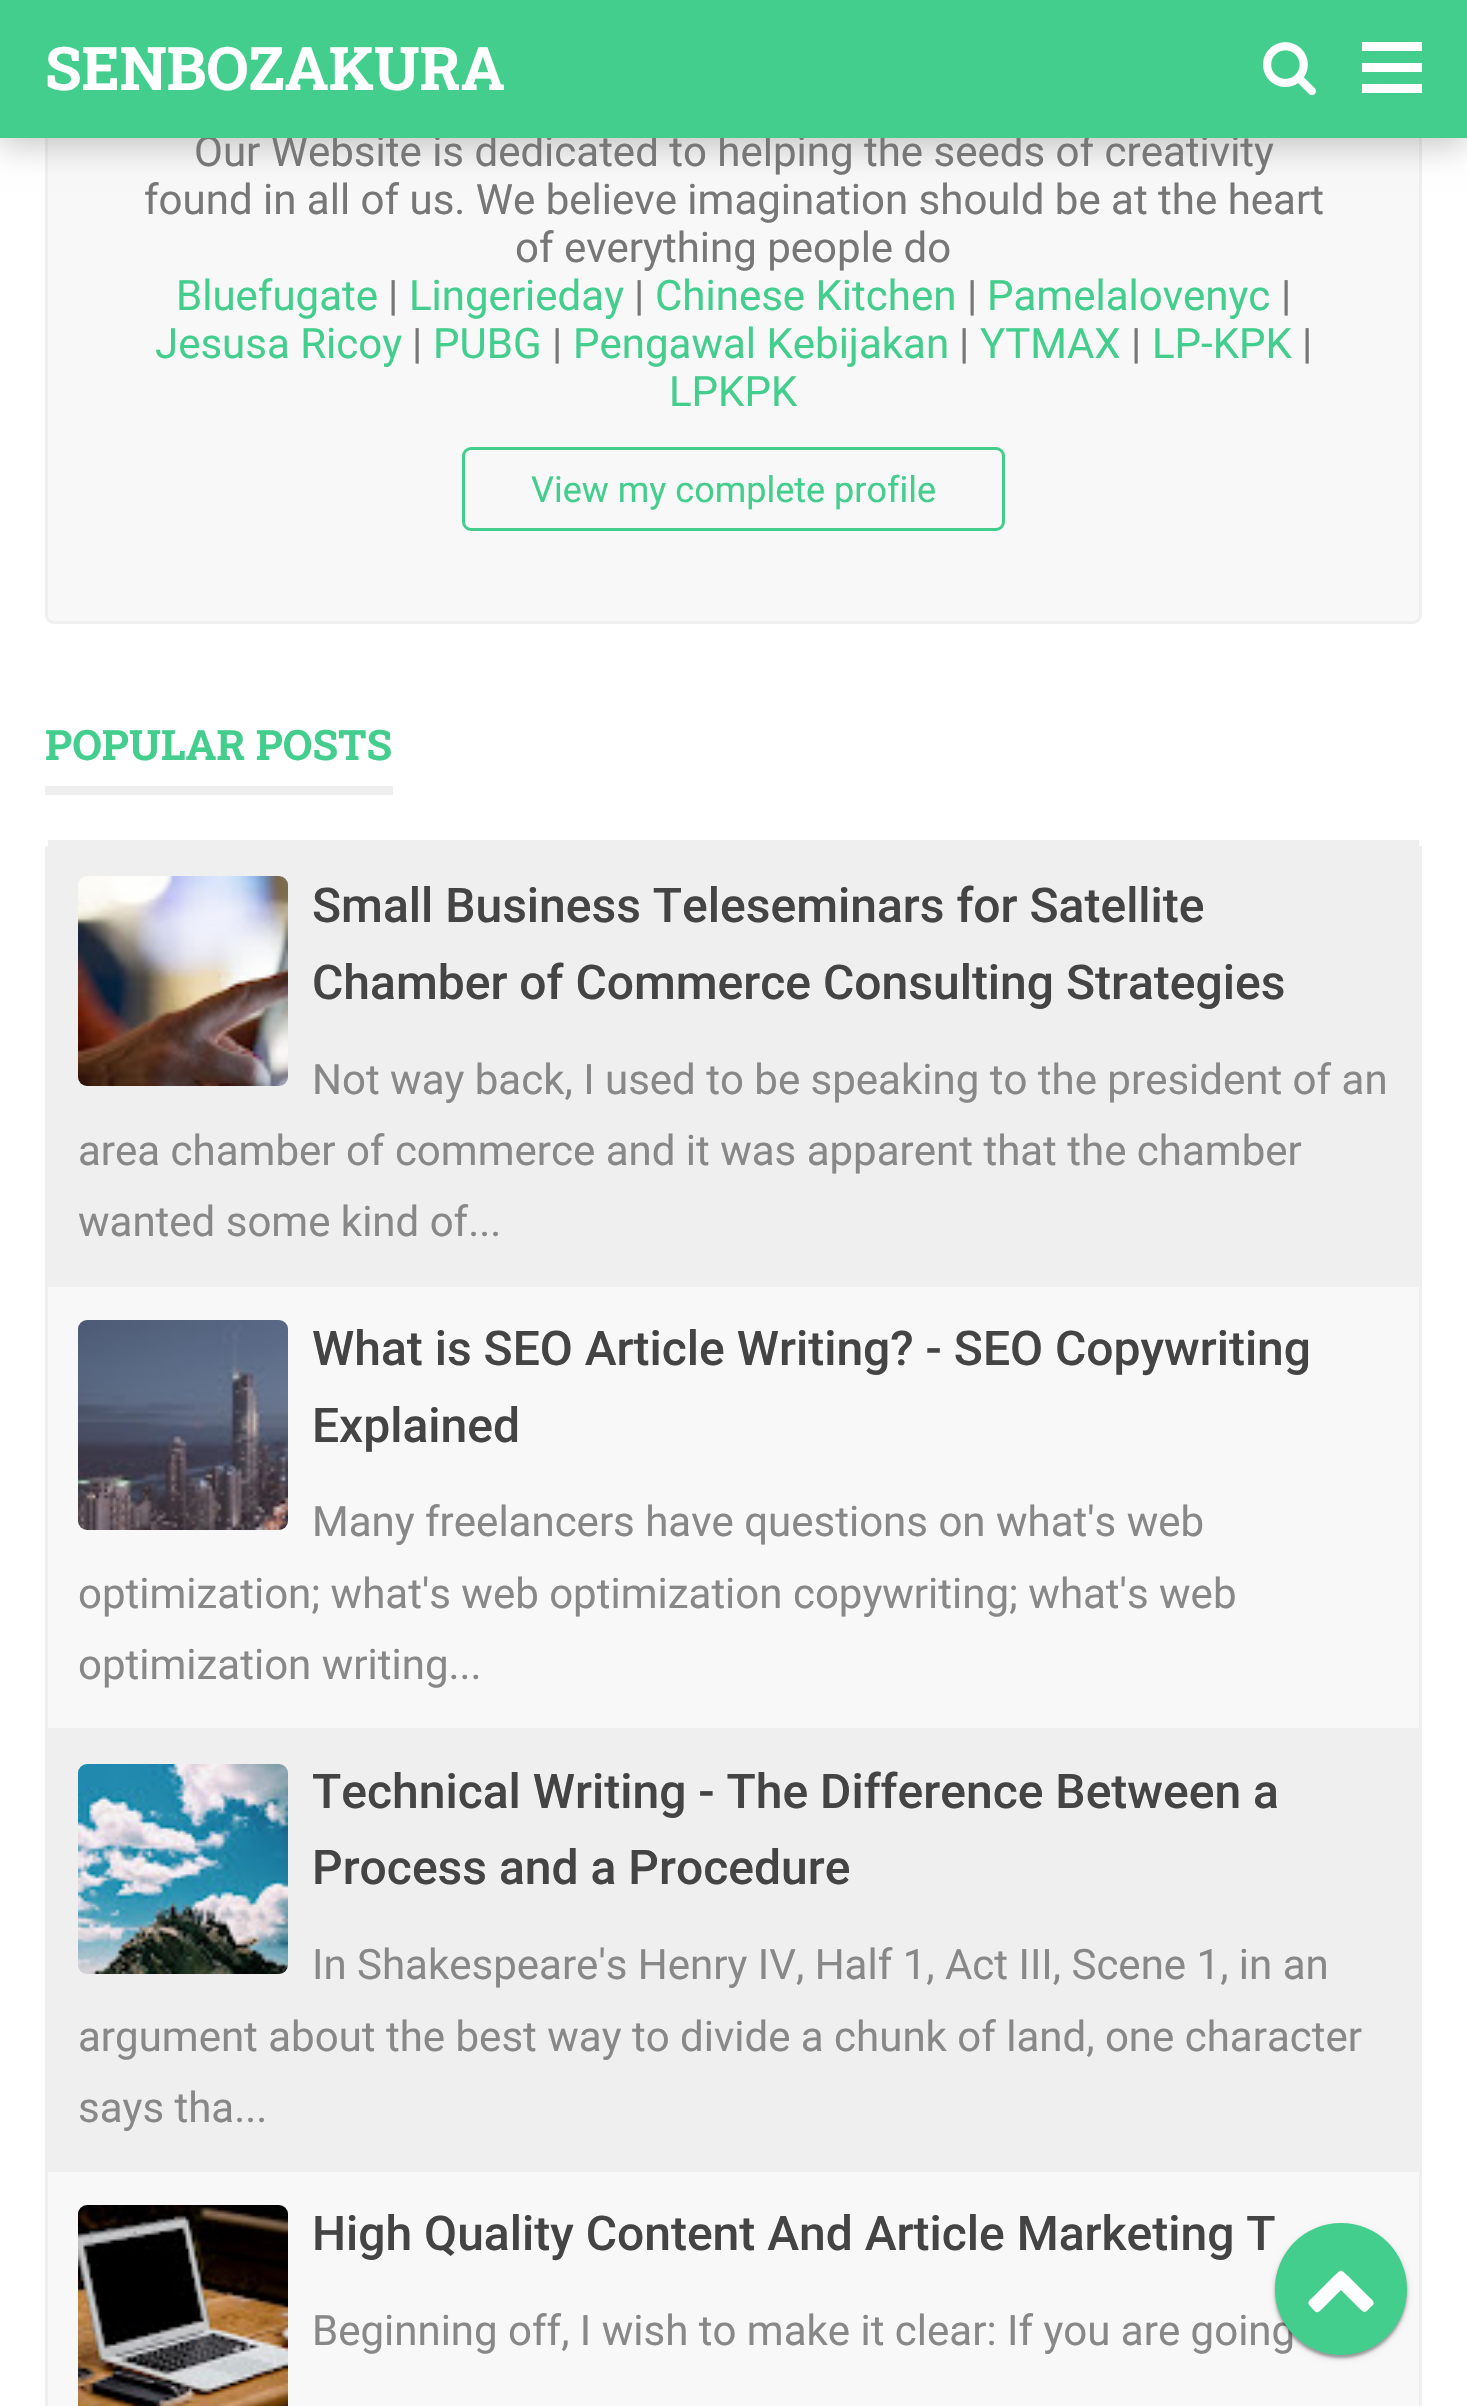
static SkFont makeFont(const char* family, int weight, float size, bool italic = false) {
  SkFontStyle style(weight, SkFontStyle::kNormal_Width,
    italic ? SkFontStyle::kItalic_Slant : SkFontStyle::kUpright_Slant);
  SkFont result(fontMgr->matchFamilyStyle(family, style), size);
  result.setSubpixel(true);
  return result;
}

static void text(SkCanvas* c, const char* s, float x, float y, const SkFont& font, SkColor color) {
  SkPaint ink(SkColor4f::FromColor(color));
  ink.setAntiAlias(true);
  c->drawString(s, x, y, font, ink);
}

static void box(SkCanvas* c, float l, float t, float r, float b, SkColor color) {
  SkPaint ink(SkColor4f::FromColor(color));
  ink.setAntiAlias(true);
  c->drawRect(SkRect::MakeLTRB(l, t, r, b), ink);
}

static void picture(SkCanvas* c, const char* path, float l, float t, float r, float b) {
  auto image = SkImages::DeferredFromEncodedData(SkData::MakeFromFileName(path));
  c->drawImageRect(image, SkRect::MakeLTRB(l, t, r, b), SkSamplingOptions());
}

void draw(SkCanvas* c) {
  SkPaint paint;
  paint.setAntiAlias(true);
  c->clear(0xffffffff);
  paint.setColor(0xfff8f8f8);
  c->drawRoundRect(SkRect::MakeLTRB(46.5f, -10.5f, 1420.5f, 622.5f), 7.5f, 7.5f, paint);
  paint.setStyle(SkPaint::kStroke_Style);
  paint.setStrokeWidth(3);
  paint.setColor(0xffefefef);
  c->drawRoundRect(SkRect::MakeLTRB(46.5f, -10.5f, 1420.5f, 622.5f), 7.5f, 7.5f, paint);
  paint.setStyle(SkPaint::kFill_Style);
  paint.setColor(0x33000000);
  paint.setMaskFilter(SkMaskFilter::MakeBlur(kNormal_SkBlurStyle, 15));
  c->drawRect(SkRect::MakeLTRB(0, 9, 1467, 147), paint);
  paint.setMaskFilter(nullptr);
  SkFont face1 = makeFont("Roboto", 400, 42);
  text(c, "Our Website is dedicated to helping the seeds of creativity", 194, 166, face1, 0xff777777);
  box(c, 0, 0, 1467, 138, 0xff43ce8e);
  SkFont face2 = makeFont("Roboto Slab", 700, 60);
  text(c, "SENBOZAKURA", 45, 90, face2, 0xffffffff);
  picture(c, "img_01.png", 1263, 42, 1316, 96);
  box(c, 1362, 42, 1422, 51, 0xffffffff);
  box(c, 1362, 63, 1422, 72, 0xffffffff);
  box(c, 1362, 84, 1422, 93, 0xffffffff);
  text(c, "found in all of us. We believe imagination should be at the heart", 144, 214, face1, 0xff777777);
  text(c, "of everything people do", 515, 262, face1, 0xff777777);
  text(c, "Bluefugate", 176, 310, face1, 0xff43ce8e);
  text(c, "|", 388, 310, face1, 0xff777777);
  text(c, "Lingerieday", 409, 310, face1, 0xff43ce8e);
  text(c, "|", 634, 310, face1, 0xff777777);
  text(c, "Chinese Kitchen", 655, 310, face1, 0xff43ce8e);
  text(c, "|", 967, 310, face1, 0xff777777);
  text(c, "Pamelalovenyc", 987, 310, face1, 0xff43ce8e);
  text(c, "|", 1281, 310, face1, 0xff777777);
  text(c, "Jesusa Ricoy", 155, 358, face1, 0xff43ce8e);
  text(c, "|", 412, 358, face1, 0xff777777);
  text(c, "PUBG", 433, 358, face1, 0xff43ce8e);
  text(c, "|", 552, 358, face1, 0xff777777);
  text(c, "Pengawal Kebijakan", 573, 358, face1, 0xff43ce8e);
  text(c, "|", 959, 358, face1, 0xff777777);
  text(c, "YTMAX", 980, 358, face1, 0xff43ce8e);
  text(c, "|", 1131, 358, face1, 0xff777777);
  text(c, "LP-KPK", 1152, 358, face1, 0xff43ce8e);
  text(c, "|", 1302, 358, face1, 0xff777777);
  text(c, "LPKPK", 669, 406, face1, 0xff43ce8e);
  paint.setStyle(SkPaint::kStroke_Style);
  paint.setColor(0xff43ce8e);
  c->drawRoundRect(SkRect::MakeLTRB(463.5f, 448.5f, 1003.5f, 529.5f), 7.5f, 7.5f, paint);
  SkFont face3 = makeFont("Roboto", 400, 36);
  text(c, "View my complete profile", 531, 502, face3, 0xff43ce8e);
  box(c, 45, 786, 393, 795, 0xffefefef);
  SkFont face4 = makeFont("Roboto Slab", 700, 42);
  text(c, "POPULAR POSTS", 45, 760, face4, 0xff43ce8e);
  box(c, 1419, 846, 1422, 2406, 0xffefefef);
  box(c, 45, 846, 48, 2406, 0xffefefef);
  box(c, 48, 840, 1419, 1287, 0xffefefef);
  picture(c, "img_02.png", 78, 876, 288, 1086);
  SkFont face5 = makeFont("Roboto", 500, 48);
  text(c, "Small Business Teleseminars for Satellite", 312, 922, face5, 0xff444444);
  text(c, "Chamber of Commerce Consulting Strategies", 312, 999, face5, 0xff444444);
  text(c, "Not way back, I used to be speaking to the president of an", 312, 1094, face1, 0xff888888);
  text(c, "area chamber of commerce and it was apparent that the chamber", 78, 1165, face1, 0xff888888);
  text(c, "wanted some kind of...", 78, 1236, face1, 0xff888888);
  box(c, 48, 1287, 1419, 1728, 0xfff8f8f8);
  picture(c, "img_03.png", 78, 1320, 288, 1530);
  text(c, "What is SEO Article Writing? - SEO Copywriting", 312, 1365, face5, 0xff444444);
  text(c, "Explained", 312, 1442, face5, 0xff444444);
  text(c, "Many freelancers have questions on what's web", 312, 1536, face1, 0xff888888);
  text(c, "optimization; what's web optimization copywriting; what's web", 78, 1608, face1, 0xff888888);
  text(c, "optimization writing...", 78, 1679, face1, 0xff888888);
  box(c, 48, 1728, 1419, 2172, 0xffefefef);
  picture(c, "img_04.png", 78, 1764, 288, 1974);
  text(c, "Technical Writing - The Difference Between a", 312, 1808, face5, 0xff444444);
  text(c, "Process and a Procedure", 312, 1884, face5, 0xff444444);
  text(c, "In Shakespeare's Henry IV, Half 1, Act III, Scene 1, in an", 312, 1979, face1, 0xff888888);
  text(c, "argument about the best way to divide a chunk of land, one character", 78, 2051, face1, 0xff888888);
  text(c, "says tha...", 78, 2122, face1, 0xff888888);
  box(c, 48, 2172, 1419, 2406, 0xfff8f8f8);
  picture(c, "img_05.png", 78, 2205, 288, 2406);
  text(c, "High Quality Content And Article Marketing T", 312, 2250, face5, 0xff444444);
  text(c, "Beginning off, I wish to make it clear: If you are going", 312, 2345, face1, 0xff888888);
  paint.setStyle(SkPaint::kFill_Style);
  paint.setColor(0x4d000000);
  paint.setMaskFilter(SkMaskFilter::MakeBlur(kNormal_SkBlurStyle, 1.5f));
  c->drawRoundRect(SkRect::MakeLTRB(1275, 2226, 1407, 2358), 66, 66, paint);
  paint.setMaskFilter(nullptr);
  paint.setColor(0x26000000);
  paint.setMaskFilter(SkMaskFilter::MakeBlur(kNormal_SkBlurStyle, 3));
  c->drawRoundRect(SkRect::MakeLTRB(1275, 2226, 1407, 2358), 66, 66, paint);
  paint.setMaskFilter(nullptr);
  paint.setColor(0xff43ce8e);
  c->drawCircle(1341, 2289, 66, paint);
  paint.setColor(0xffffffff);
  c->drawPath(SkPathBuilder().moveTo(1373, 2305).cubicTo(1365, 2312, 1366, 2315, 1359, 2308).lineTo(1341, 2290).lineTo(1323, 2308).cubicTo(1316, 2315, 1317, 2313, 1310, 2306).cubicTo(1306, 2302, 1310, 2300, 1314, 2296).lineTo(1334, 2276).cubicTo(1342, 2269, 1340, 2269, 1348, 2276).lineTo(1368, 2296).cubicTo(1369, 2297, 1376, 2302, 1373, 2305).close().detach(), paint);
}
